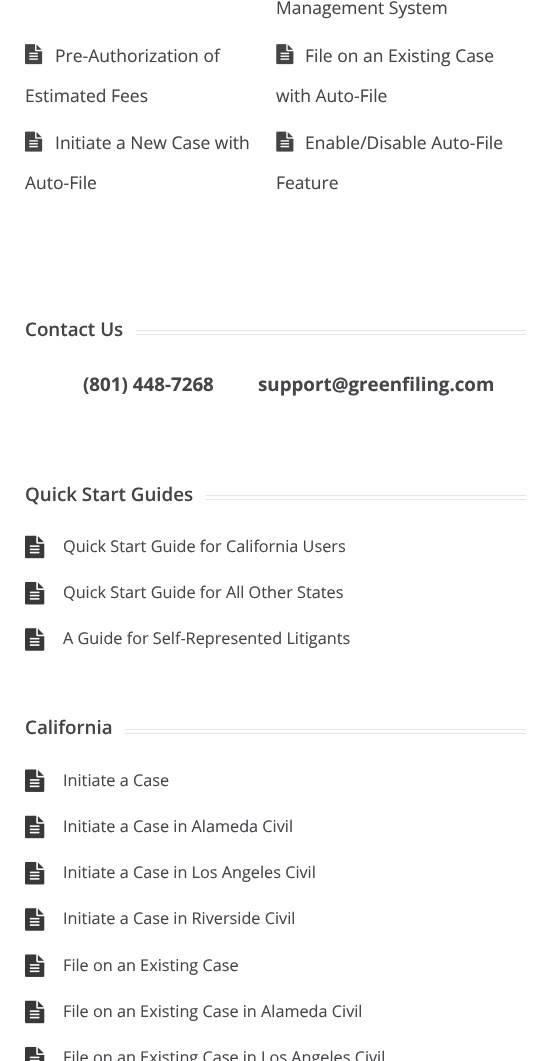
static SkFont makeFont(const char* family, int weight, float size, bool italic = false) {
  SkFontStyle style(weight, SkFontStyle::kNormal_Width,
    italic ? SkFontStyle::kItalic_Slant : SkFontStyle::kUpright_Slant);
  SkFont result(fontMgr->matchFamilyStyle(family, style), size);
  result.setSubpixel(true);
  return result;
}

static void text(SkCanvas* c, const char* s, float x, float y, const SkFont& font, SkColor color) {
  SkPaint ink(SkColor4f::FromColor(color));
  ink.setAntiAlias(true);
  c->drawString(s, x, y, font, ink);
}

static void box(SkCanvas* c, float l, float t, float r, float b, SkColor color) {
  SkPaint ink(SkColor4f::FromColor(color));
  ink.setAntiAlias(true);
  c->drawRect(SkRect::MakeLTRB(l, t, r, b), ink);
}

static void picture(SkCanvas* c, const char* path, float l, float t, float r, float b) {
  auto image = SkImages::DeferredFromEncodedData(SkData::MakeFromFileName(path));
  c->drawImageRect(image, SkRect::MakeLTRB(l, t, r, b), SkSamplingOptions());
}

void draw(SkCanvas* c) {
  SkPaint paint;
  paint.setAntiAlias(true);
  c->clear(0xffffffff);
  SkFont face1 = makeFont("Open Sans", 400, 17.5f);
  text(c, "Management System", 276, 14, face1, 0xff444444);
  picture(c, "img_01.png", 25, 44, 43, 65);
  text(c, "Pre-Authorization of", 55, 62, face1, 0xff444444);
  text(c, "Estimated Fees", 25, 102, face1, 0xff444444);
  picture(c, "img_02.png", 276, 44, 294, 65);
  text(c, "File on an Existing Case", 305, 62, face1, 0xff444444);
  text(c, "with Auto-File", 276, 102, face1, 0xff444444);
  picture(c, "img_03.png", 25, 131, 43, 152);
  text(c, "Initiate a New Case with", 55, 149, face1, 0xff444444);
  text(c, "Auto-File", 25, 189, face1, 0xff444444);
  picture(c, "img_04.png", 276, 131, 294, 152);
  text(c, "Enable/Disable Auto-File", 305, 149, face1, 0xff444444);
  text(c, "Feature", 276, 189, face1, 0xff444444);
  box(c, 136, 330, 526, 331, 0xffe5e5e5);
  box(c, 136, 334, 526, 335, 0xffe5e5e5);
  SkFont face2 = makeFont("Open Sans", 600, 18.75f);
  text(c, "Contact Us", 25, 336, face2, 0xff444444);
  SkFont face3 = makeFont("Open Sans", 700, 18.75f);
  text(c, "(801) 448-7268", 83, 391, face3, 0xff45454c);
  text(c, "support@greenfiling.com", 258, 391, face3, 0xff45454c);
  box(c, 206, 495, 526, 496, 0xffe5e5e5);
  box(c, 206, 499, 526, 500, 0xffe5e5e5);
  text(c, "Quick Start Guides", 25, 501, face2, 0xff444444);
  picture(c, "img_05.png", 25, 535, 45, 559);
  SkFont face4 = makeFont("Open Sans", 400, 16.25f);
  text(c, "Quick Start Guide for California Users", 63, 552, face4, 0xff45454c);
  picture(c, "img_06.png", 25, 581, 45, 605);
  text(c, "Quick Start Guide for All Other States", 63, 598, face4, 0xff45454c);
  picture(c, "img_07.png", 25, 628, 45, 651);
  text(c, "A Guide for Self-Represented Litigants", 63, 644, face4, 0xff45454c);
  box(c, 125, 729, 526, 730, 0xffe5e5e5);
  box(c, 125, 733, 526, 734, 0xffe5e5e5);
  text(c, "California", 25, 734, face2, 0xff444444);
  picture(c, "img_08.png", 25, 769, 45, 792);
  text(c, "Initiate a Case", 63, 786, face4, 0xff45454c);
  picture(c, "img_05.png", 25, 815, 45, 839);
  text(c, "Initiate a Case in Alameda Civil", 63, 832, face4, 0xff45454c);
  picture(c, "img_06.png", 25, 861, 45, 885);
  text(c, "Initiate a Case in Los Angeles Civil", 63, 878, face4, 0xff45454c);
  picture(c, "img_07.png", 25, 908, 45, 931);
  text(c, "Initiate a Case in Riverside Civil", 63, 924, face4, 0xff45454c);
  picture(c, "img_08.png", 25, 954, 45, 977);
  text(c, "File on an Existing Case", 63, 971, face4, 0xff45454c);
  picture(c, "img_05.png", 25, 1000, 45, 1024);
  text(c, "File on an Existing Case in Alameda Civil", 63, 1017, face4, 0xff45454c);
  picture(c, "img_09.png", 25, 1046, 45, 1061);
  text(c, "File on an Existing Case in Los Angeles Civil", 63, 1063, face4, 0xff45454c);
}
